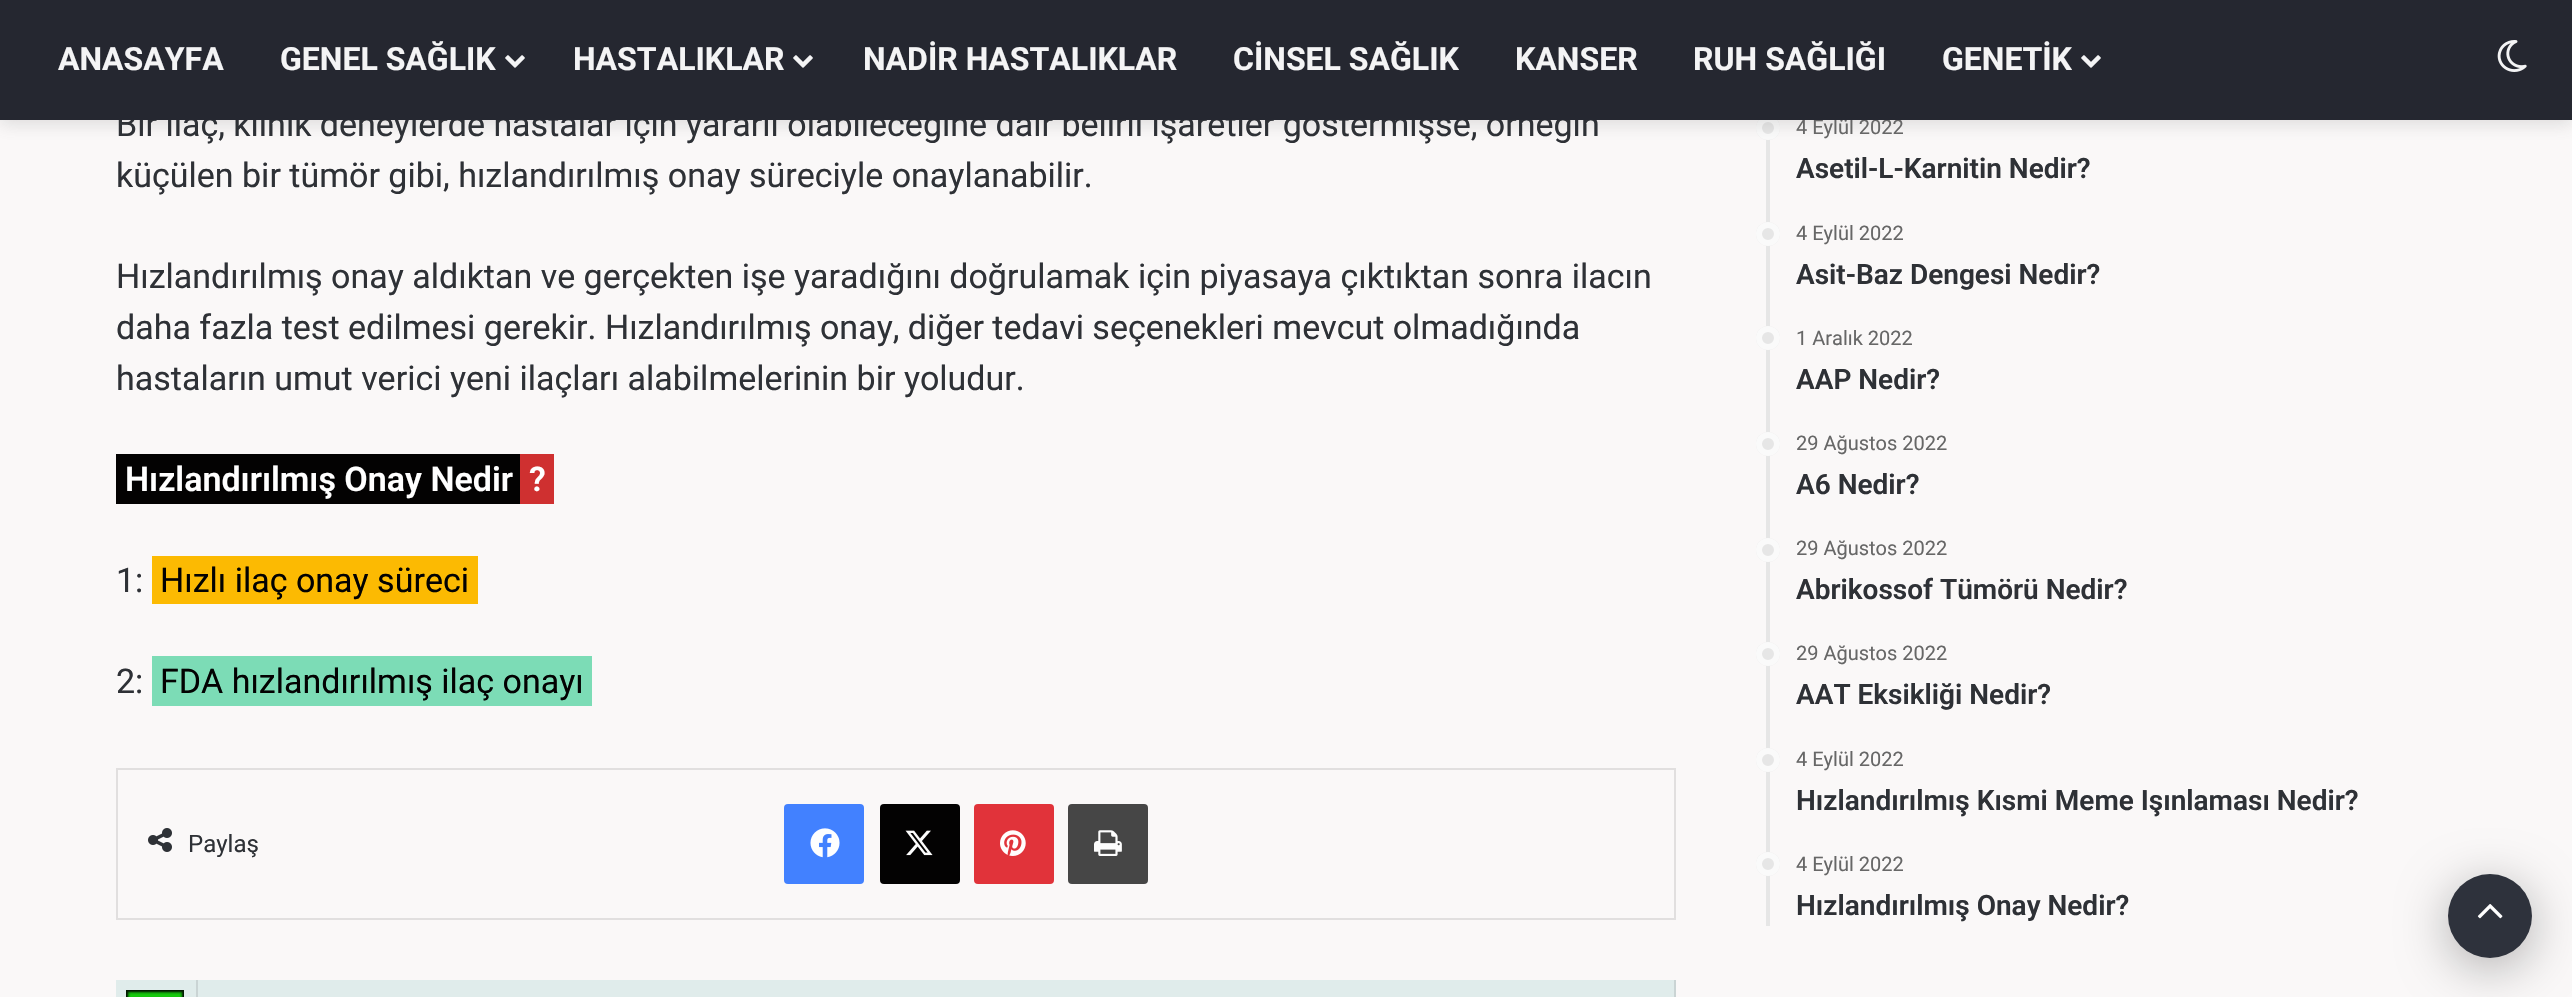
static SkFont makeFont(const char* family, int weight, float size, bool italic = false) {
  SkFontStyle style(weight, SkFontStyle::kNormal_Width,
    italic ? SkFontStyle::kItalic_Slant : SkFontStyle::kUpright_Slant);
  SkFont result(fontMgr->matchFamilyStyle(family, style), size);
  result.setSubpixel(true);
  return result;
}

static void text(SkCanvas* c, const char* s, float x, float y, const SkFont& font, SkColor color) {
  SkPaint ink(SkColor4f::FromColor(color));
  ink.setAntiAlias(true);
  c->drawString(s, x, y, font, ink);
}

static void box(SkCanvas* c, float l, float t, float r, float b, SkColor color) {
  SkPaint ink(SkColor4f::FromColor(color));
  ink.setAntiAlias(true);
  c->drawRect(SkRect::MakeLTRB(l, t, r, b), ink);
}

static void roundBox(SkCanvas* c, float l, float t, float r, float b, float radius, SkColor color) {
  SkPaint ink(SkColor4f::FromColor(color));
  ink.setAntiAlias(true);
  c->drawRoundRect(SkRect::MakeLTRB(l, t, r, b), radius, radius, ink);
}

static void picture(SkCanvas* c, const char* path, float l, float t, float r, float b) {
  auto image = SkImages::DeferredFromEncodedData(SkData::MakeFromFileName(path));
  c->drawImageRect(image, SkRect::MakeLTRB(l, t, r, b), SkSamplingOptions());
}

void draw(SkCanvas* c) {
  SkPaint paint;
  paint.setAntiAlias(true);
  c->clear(0xfffaf8f8);
  box(c, 1766, 139, 1770, 926, 0xffe6e6e6);
  paint.setColor(0xffe6e6e6);
  c->drawCircle(1768, 128, 12, paint);
  paint.setStyle(SkPaint::kStroke_Style);
  paint.setStrokeWidth(6);
  paint.setColor(0xccffffff);
  c->drawCircle(1768, 128, 9, paint);
  paint.setStyle(SkPaint::kFill_Style);
  paint.setColor(0x33636363);
  paint.setMaskFilter(SkMaskFilter::MakeBlur(kNormal_SkBlurStyle, 8));
  c->drawRect(SkRect::MakeLTRB(0, 4, 2572, 124), paint);
  paint.setMaskFilter(nullptr);
  SkFont face1 = makeFont("Roboto", 400, 34);
  text(c, "Bir ilaç, klinik deneylerde hastalar için yararlı olabileceğine dair belirli işaretler göstermişse, örneğin", 116, 136, face1, 0xff2e3136);
  SkFont face2 = makeFont("Roboto", 400, 20);
  text(c, "4 Eylül 2022", 1796, 134, face2, 0xff676767);
  box(c, 0, 0, 2572, 120, 0xff252730);
  SkFont face3 = makeFont("Roboto", 700, 32);
  text(c, "ANASAYFA", 58, 70, face3, 0xfff4f4f5);
  text(c, "GENEL SAĞLIK", 280, 70, face3, 0xfff4f4f5);
  picture(c, "img_01.png", 505, 55, 525, 68);
  text(c, "HASTALIKLAR", 573, 70, face3, 0xfff4f4f5);
  picture(c, "img_01.png", 793, 55, 813, 68);
  text(c, "NADİR HASTALIKLAR", 863, 70, face3, 0xfff4f4f5);
  text(c, "CİNSEL SAĞLIK", 1233, 70, face3, 0xfff4f4f5);
  text(c, "KANSER", 1515, 70, face3, 0xfff4f4f5);
  text(c, "RUH SAĞLIĞI", 1693, 70, face3, 0xfff4f4f5);
  text(c, "GENETİK", 1942, 70, face3, 0xfff4f4f5);
  picture(c, "img_01.png", 2081, 55, 2101, 68);
  picture(c, "img_02.png", 2497, 40, 2527, 72);
  text(c, "küçülen bir tümör gibi, hızlandırılmış onay süreciyle onaylanabilir.", 116, 187, face1, 0xff2e3136);
  text(c, "Hızlandırılmış onay aldıktan ve gerçekten işe yaradığını doğrulamak için piyasaya çıktıktan sonra ilacın", 116, 288, face1, 0xff2e3136);
  text(c, "daha fazla test edilmesi gerekir. Hızlandırılmış onay, diğer tedavi seçenekleri mevcut olmadığında", 116, 339, face1, 0xff2e3136);
  text(c, "hastaların umut verici yeni ilaçları alabilmelerinin bir yoludur.", 116, 390, face1, 0xff2e3136);
  box(c, 116, 454, 520, 504, 0xff030202);
  SkFont face4 = makeFont("Roboto", 600, 34);
  text(c, "Hızlandırılmış Onay Nedir", 125, 491, face4, 0xffffffff);
  box(c, 520, 454, 554, 504, 0xffcf3030);
  text(c, "?", 529, 491, face4, 0xffffffff);
  text(c, "1:", 116, 592, face1, 0xff2e3136);
  box(c, 152, 556, 478, 604, 0xfffcba02);
  text(c, "Hızlı ilaç onay süreci", 160, 592, face1, 0xff030202);
  text(c, "2:", 116, 693, face1, 0xff2e3136);
  box(c, 152, 656, 592, 706, 0xff7cdcb6);
  text(c, "FDA hızlandırılmış ilaç onayı", 160, 693, face1, 0xff030202);
  paint.setStyle(SkPaint::kStroke_Style);
  paint.setStrokeWidth(2);
  paint.setColor(0xffe1dfdf);
  c->drawRect(SkRect::MakeLTRB(117, 769, 1675, 919), paint);
  picture(c, "img_03.png", 148, 828, 172, 852);
  SkFont face5 = makeFont("Roboto", 400, 24);
  text(c, "Paylaş", 188, 852, face5, 0xff2e3136);
  roundBox(c, 784, 804, 864, 884, 4, 0xff4281ff);
  picture(c, "img_04.png", 810, 828, 840, 858);
  roundBox(c, 880, 804, 960, 884, 4, 0xff030202);
  picture(c, "img_05.png", 905, 830, 933, 856);
  roundBox(c, 974, 804, 1054, 884, 4, 0xffe1333a);
  picture(c, "img_06.png", 1000, 830, 1026, 856);
  roundBox(c, 1068, 804, 1148, 884, 4, 0xff464646);
  picture(c, "img_07.png", 1094, 830, 1122, 856);
  box(c, 116, 980, 1674, 997, 0xffe0eceb);
  box(c, 196, 980, 198, 997, 0xffcad4d4);
  picture(c, "img_08.png", 126, 990, 184, 997);
  box(c, 1674, 980, 1676, 997, 0xffcad4d4);
  SkFont face6 = makeFont("Roboto", 600, 28);
  text(c, "Asetil-L-Karnitin Nedir?", 1796, 178, face6, 0xff2e3136);
  paint.setStyle(SkPaint::kFill_Style);
  paint.setColor(0xffe6e6e6);
  c->drawCircle(1768, 234, 12, paint);
  paint.setStyle(SkPaint::kStroke_Style);
  paint.setStrokeWidth(6);
  paint.setColor(0xccffffff);
  c->drawCircle(1768, 234, 9, paint);
  text(c, "4 Eylül 2022", 1796, 240, face2, 0xff676767);
  text(c, "Asit-Baz Dengesi Nedir?", 1796, 284, face6, 0xff2e3136);
  paint.setStyle(SkPaint::kFill_Style);
  paint.setColor(0xffe6e6e6);
  c->drawCircle(1768, 338, 12, paint);
  paint.setStyle(SkPaint::kStroke_Style);
  paint.setColor(0xccffffff);
  c->drawCircle(1768, 338, 9, paint);
  text(c, "1 Aralık 2022", 1796, 345, face2, 0xff676767);
  text(c, "AAP Nedir?", 1796, 389, face6, 0xff2e3136);
  paint.setStyle(SkPaint::kFill_Style);
  paint.setColor(0xffe6e6e6);
  c->drawCircle(1768, 444, 12, paint);
  paint.setStyle(SkPaint::kStroke_Style);
  paint.setColor(0xccffffff);
  c->drawCircle(1768, 444, 9, paint);
  text(c, "29 Ağustos 2022", 1796, 450, face2, 0xff676767);
  text(c, "A6 Nedir?", 1796, 494, face6, 0xff2e3136);
  paint.setStyle(SkPaint::kFill_Style);
  paint.setColor(0xffe6e6e6);
  c->drawCircle(1768, 550, 12, paint);
  paint.setStyle(SkPaint::kStroke_Style);
  paint.setColor(0xccffffff);
  c->drawCircle(1768, 550, 9, paint);
  text(c, "29 Ağustos 2022", 1796, 555, face2, 0xff676767);
  text(c, "Abrikossof Tümörü Nedir?", 1796, 599, face6, 0xff2e3136);
  paint.setStyle(SkPaint::kFill_Style);
  paint.setColor(0xffe6e6e6);
  c->drawCircle(1768, 654, 12, paint);
  paint.setStyle(SkPaint::kStroke_Style);
  paint.setColor(0xccffffff);
  c->drawCircle(1768, 654, 9, paint);
  text(c, "29 Ağustos 2022", 1796, 660, face2, 0xff676767);
  text(c, "AAT Eksikliği Nedir?", 1796, 704, face6, 0xff2e3136);
  paint.setStyle(SkPaint::kFill_Style);
  paint.setColor(0xffe6e6e6);
  c->drawCircle(1768, 760, 12, paint);
  paint.setStyle(SkPaint::kStroke_Style);
  paint.setColor(0xccffffff);
  c->drawCircle(1768, 760, 9, paint);
  text(c, "4 Eylül 2022", 1796, 766, face2, 0xff676767);
  text(c, "Hızlandırılmış Kısmi Meme Işınlaması Nedir?", 1796, 810, face6, 0xff2e3136);
  paint.setStyle(SkPaint::kFill_Style);
  paint.setColor(0xffe6e6e6);
  c->drawCircle(1768, 864, 12, paint);
  paint.setStyle(SkPaint::kStroke_Style);
  paint.setColor(0xccffffff);
  c->drawCircle(1768, 864, 9, paint);
  text(c, "4 Eylül 2022", 1796, 871, face2, 0xff676767);
  text(c, "Hızlandırılmış Onay Nedir?", 1796, 915, face6, 0xff2e3136);
  paint.setStyle(SkPaint::kFill_Style);
  paint.setColor(0x4d000000);
  paint.setMaskFilter(SkMaskFilter::MakeBlur(kNormal_SkBlurStyle, 25));
  c->drawRoundRect(SkRect::MakeLTRB(2448, 884, 2532, 968), 42, 42, paint);
  paint.setMaskFilter(nullptr);
  paint.setColor(0xff2e323c);
  c->drawCircle(2490, 916, 42, paint);
  picture(c, "img_09.png", 2477, 904, 2503, 919);
}
